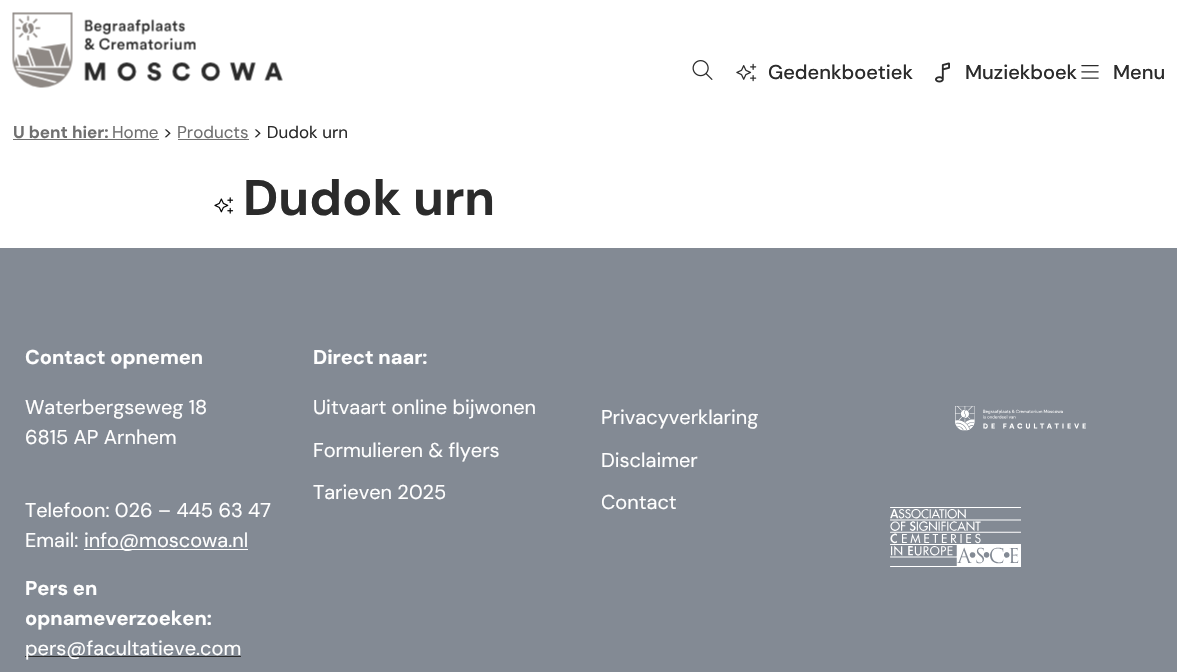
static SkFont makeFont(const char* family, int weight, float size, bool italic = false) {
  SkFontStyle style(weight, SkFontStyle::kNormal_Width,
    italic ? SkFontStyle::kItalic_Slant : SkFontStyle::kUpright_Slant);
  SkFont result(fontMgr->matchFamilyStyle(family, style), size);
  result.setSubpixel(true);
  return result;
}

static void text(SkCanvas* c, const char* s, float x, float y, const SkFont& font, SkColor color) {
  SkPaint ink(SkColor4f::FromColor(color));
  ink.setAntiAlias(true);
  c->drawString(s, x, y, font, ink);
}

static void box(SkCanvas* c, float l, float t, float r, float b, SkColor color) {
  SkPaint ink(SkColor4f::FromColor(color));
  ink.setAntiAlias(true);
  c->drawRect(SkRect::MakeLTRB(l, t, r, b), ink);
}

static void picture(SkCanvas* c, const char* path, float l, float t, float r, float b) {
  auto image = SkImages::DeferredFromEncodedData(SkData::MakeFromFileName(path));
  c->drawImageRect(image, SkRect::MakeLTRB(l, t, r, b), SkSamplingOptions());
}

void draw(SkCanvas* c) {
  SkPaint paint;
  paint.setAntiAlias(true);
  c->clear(0xffffffff);
  picture(c, "img_01.png", 12, 12, 283, 88);
  picture(c, "img_02.png", 692, 60, 713, 80);
  picture(c, "img_03.png", 736, 63, 757, 82);
  SkFont face1 = makeFont("DM Sans", 500, 20);
  text(c, "Gedenkboetiek", 768, 79, face1, 0xff2b2b2b);
  picture(c, "img_04.png", 935, 62, 950, 83);
  text(c, "Muziekboek", 965, 79, face1, 0xff2b2b2b);
  picture(c, "img_05.png", 1081, 65, 1099, 79);
  text(c, "Menu", 1113, 79, face1, 0xff2b2b2b);
  SkFont face2 = makeFont("DM Sans", 700, 17);
  text(c, "U bent hier:", 13, 138, face2, 0xff707070);
  SkFont face3 = makeFont("DM Sans", 400, 17);
  text(c, "Home", 112, 138, face3, 0xff707070);
  box(c, 13, 139, 159, 140, 0xff707070);
  text(c, ">", 163, 138, face3, 0xff2b2b2b);
  text(c, "Products", 177, 138, face3, 0xff707070);
  box(c, 178, 139, 249, 140, 0xff707070);
  text(c, "> Dudok urn", 253, 138, face3, 0xff2b2b2b);
  picture(c, "img_06.png", 214, 197, 234, 214);
  SkFont face4 = makeFont("DM Sans", 700, 50);
  text(c, "Dudok urn", 243, 215, face4, 0xff2b2b2b);
  box(c, 0, 248, 1177, 672, 0xff838a94);
  SkFont face5 = makeFont("DM Sans", 700, 20);
  text(c, "Contact opnemen", 25, 364, face5, 0xffffffff);
  SkFont face6 = makeFont("DM Sans", 400, 20);
  text(c, "Waterbergseweg 18", 25, 414, face6, 0xffffffff);
  text(c, "6815 AP Arnhem", 25, 444, face6, 0xffffffff);
  text(c, "Telefoon: 026 – 445 63 47", 25, 517, face6, 0xffffffff);
  text(c, "Email:", 25, 547, face6, 0xffffffff);
  box(c, 84, 549, 248, 550, 0xffffffff);
  text(c, "info@moscowa.nl", 84, 547, face6, 0xffffffff);
  text(c, "Pers en", 25, 595, face5, 0xffffffff);
  text(c, "opnameverzoeken:", 25, 625, face5, 0xffffffff);
  box(c, 25, 656, 241, 657, 0xff2b2b2b);
  text(c, "pers@facultatieve.com", 25, 655, face6, 0xffffffff);
  text(c, "Direct naar:", 313, 364, face5, 0xffffffff);
  text(c, "Uitvaart online bijwonen", 313, 414, face6, 0xffffffff);
  text(c, "Formulieren & flyers", 313, 457, face6, 0xffffffff);
  text(c, "Tarieven 2025", 313, 499, face6, 0xffffffff);
  text(c, "Privacyverklaring", 601, 424, face6, 0xffffffff);
  text(c, "Disclaimer", 601, 467, face6, 0xffffffff);
  text(c, "Contact", 601, 509, face6, 0xffffffff);
  picture(c, "img_07.png", 955, 406, 1086, 431);
  picture(c, "img_08.png", 890, 507, 1021, 567);
}
